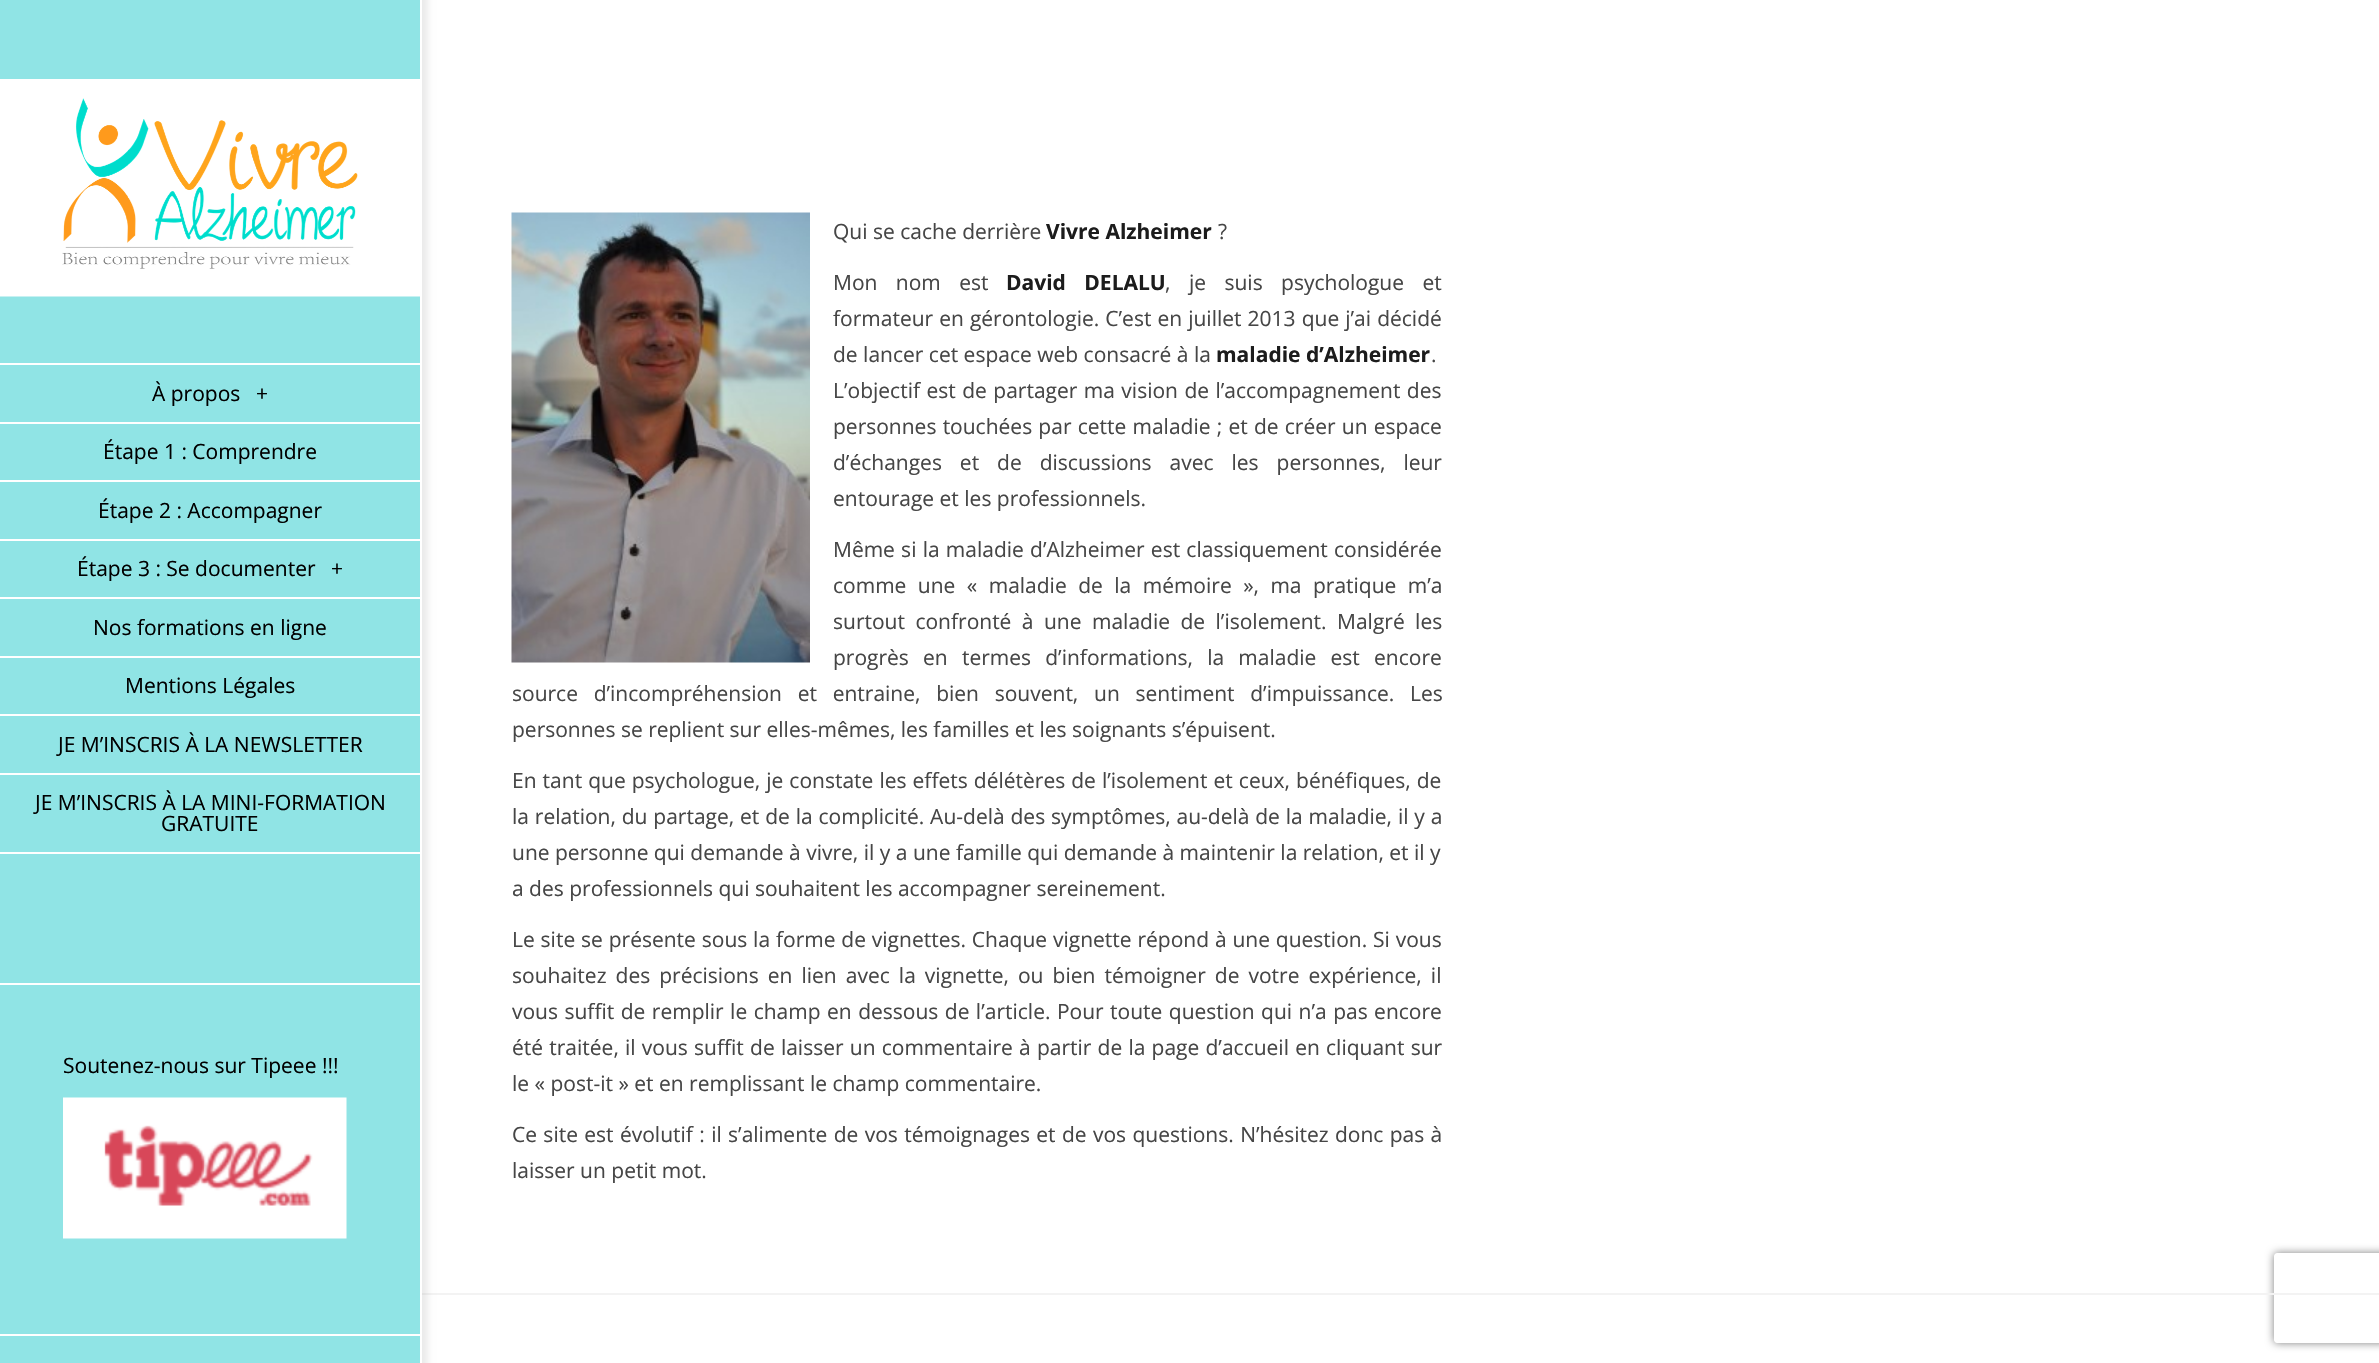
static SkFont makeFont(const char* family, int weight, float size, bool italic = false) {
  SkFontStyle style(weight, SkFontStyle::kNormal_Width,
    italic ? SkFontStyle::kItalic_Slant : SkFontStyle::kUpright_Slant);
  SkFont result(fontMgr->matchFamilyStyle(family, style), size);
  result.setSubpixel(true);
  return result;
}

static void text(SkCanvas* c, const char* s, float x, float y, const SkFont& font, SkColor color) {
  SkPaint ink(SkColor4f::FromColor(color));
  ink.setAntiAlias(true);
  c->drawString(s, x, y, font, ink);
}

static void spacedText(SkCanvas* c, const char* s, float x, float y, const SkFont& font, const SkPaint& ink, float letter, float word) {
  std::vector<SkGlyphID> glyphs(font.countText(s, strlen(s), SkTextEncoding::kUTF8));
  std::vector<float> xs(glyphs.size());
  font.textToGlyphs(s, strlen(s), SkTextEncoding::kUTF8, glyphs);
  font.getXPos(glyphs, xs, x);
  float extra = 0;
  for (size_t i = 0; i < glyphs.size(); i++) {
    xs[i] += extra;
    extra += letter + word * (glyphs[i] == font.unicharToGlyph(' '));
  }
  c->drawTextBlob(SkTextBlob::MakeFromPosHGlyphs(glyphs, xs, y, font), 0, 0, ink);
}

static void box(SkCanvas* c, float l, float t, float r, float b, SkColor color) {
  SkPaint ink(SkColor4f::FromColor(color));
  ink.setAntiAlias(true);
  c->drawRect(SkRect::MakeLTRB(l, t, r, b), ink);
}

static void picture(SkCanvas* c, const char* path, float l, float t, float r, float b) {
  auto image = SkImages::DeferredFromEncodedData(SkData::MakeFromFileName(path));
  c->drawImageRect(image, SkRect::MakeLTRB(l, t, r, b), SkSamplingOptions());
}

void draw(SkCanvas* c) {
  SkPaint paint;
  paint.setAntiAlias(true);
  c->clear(0xffffffff);
  c->save();
  c->clipPath(SkPathBuilder(SkPathFillType::kEvenOdd).moveTo(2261, 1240).lineTo(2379, 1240).lineTo(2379, 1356).lineTo(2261, 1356).close().moveTo(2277, 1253).lineTo(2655, 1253).cubicTo(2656.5f, 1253, 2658, 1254.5f, 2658, 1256).lineTo(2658, 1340).cubicTo(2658, 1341.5f, 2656.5f, 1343, 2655, 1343).lineTo(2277, 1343).cubicTo(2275.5f, 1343, 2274, 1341.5f, 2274, 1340).lineTo(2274, 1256).cubicTo(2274, 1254.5f, 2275.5f, 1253, 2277, 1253).close().detach(), true);
  paint.setColor(0xff808080);
  paint.setMaskFilter(SkMaskFilter::MakeBlur(kNormal_SkBlurStyle, 4));
  c->drawRoundRect(SkRect::MakeLTRB(2274, 1253, 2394, 1343), 3, 3, paint);
  paint.setMaskFilter(nullptr);
  c->restore();
  box(c, 422, 1293, 2379, 1295, 0xfff3f3f3);
  paint.setColor(0x14000000);
  paint.setMaskFilter(SkMaskFilter::MakeBlur(kNormal_SkBlurStyle, 3));
  c->drawRect(SkRect::MakeLTRB(6, -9, 428, 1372), paint);
  paint.setMaskFilter(nullptr);
  box(c, 0, 0, 420, 1363, 0xff90e4e5);
  box(c, 420, 0, 422, 1363, 0xffffffff);
  picture(c, "img_01.png", 511, 212, 810, 663);
  SkFont face1 = makeFont("Open Sans", 400, 21);
  text(c, "Qui se cache derrière", 833, 239, face1, 0xff464646);
  SkFont face2 = makeFont("Open Sans", 700, 21);
  text(c, "Vivre Alzheimer", 1046, 239, face2, 0xff1c1c1c);
  text(c, "?", 1218, 239, face1, 0xff464646);
  paint.setColor(0xff464646);
  spacedText(c, "Mon nom est", 833, 290, face1, paint, 0, 13);
  paint.setColor(0xff1c1c1c);
  spacedText(c, "David DELALU", 1006, 290, face2, paint, 0, 13);
  paint.setColor(0xff464646);
  spacedText(c, ", je suis psychologue et", 1165, 290, face1, paint, 0, 13);
  spacedText(c, "formateur en gérontologie. C’est en juillet 2013 que j’ai décidé", 833, 326, face1, paint, 0, 0.6f);
  text(c, "de lancer cet espace web consacré à la", 833, 362, face1, 0xff464646);
  text(c, "maladie d’Alzheimer", 1216, 362, face2, 0xff1c1c1c);
  text(c, ".", 1431, 362, face1, 0xff464646);
  spacedText(c, "L’objectif est de partager ma vision de l’accompagnement des", 833, 398, face1, paint, 0, 1);
  spacedText(c, "personnes touchées par cette maladie ; et de créer un espace", 833, 434, face1, paint, 0, 0.75f);
  spacedText(c, "d’échanges et de discussions avec les personnes, leur", 833, 470, face1, paint, 0, 12.5f);
  text(c, "entourage et les professionnels.", 833, 506, face1, 0xff464646);
  spacedText(c, "Même si la maladie d’Alzheimer est classiquement considérée", 833, 557, face1, paint, 0, 0.75f);
  spacedText(c, "comme une « maladie de la mémoire », ma pratique m’a", 833, 593, face1, paint, 0, 6);
  spacedText(c, "surtout confronté à une maladie de l’isolement. Malgré les", 833, 629, face1, paint, 0, 5);
  spacedText(c, "progrès en termes d’informations, la maladie est encore", 833, 665, face1, paint, 0, 8.75f);
  spacedText(c, "source d’incompréhension et entraine, bien souvent, un sentiment d’impuissance. Les", 512, 701, face1, paint, 0, 10.25f);
  text(c, "personnes se replient sur elles-mêmes, les familles et les soignants s’épuisent.", 512, 737, face1, 0xff464646);
  spacedText(c, "En tant que psychologue, je constate les effets délétères de l’isolement et ceux, bénéfiques, de", 512, 788, face1, paint, 0, 0.6f);
  spacedText(c, "la relation, du partage, et de la complicité. Au-delà des symptômes, au-delà de la maladie, il y a", 512, 824, face1, paint, 0, 0.4f);
  text(c, "une personne qui demande à vivre, il y a une famille qui demande à maintenir la relation, et il y", 512, 860, face1, 0xff464646);
  text(c, "a des professionnels qui souhaitent les accompagner sereinement.", 512, 896, face1, 0xff464646);
  spacedText(c, "Le site se présente sous la forme de vignettes. Chaque vignette répond à une question. Si vous", 512, 947, face1, paint, 0, 0.4f);
  spacedText(c, "souhaitez des précisions en lien avec la vignette, ou bien témoigner de votre expérience, il", 512, 983, face1, paint, 0, 3.6f);
  spacedText(c, "vous suffit de remplir le champ en dessous de l’article. Pour toute question qui n’a pas encore", 512, 1019, face1, paint, 0, 1);
  spacedText(c, "été traitée, il vous suffit de laisser un commentaire à partir de la page d’accueil en cliquant sur", 512, 1055, face1, paint, 0, 0.75f);
  text(c, "le « post-it » et en remplissant le champ commentaire.", 512, 1091, face1, 0xff464646);
  spacedText(c, "Ce site est évolutif : il s’alimente de vos témoignages et de vos questions. N’hésitez donc pas à", 512, 1142, face1, paint, 0, 0.9f);
  text(c, "laisser un petit mot.", 512, 1178, face1, 0xff464646);
  picture(c, "img_02.png", 0, 79, 420, 297);
  box(c, 0, 363, 420, 365, 0xffffffff);
  box(c, 0, 422, 420, 424, 0xffffffff);
  text(c, "À propos", 152, 401, face1, 0xff000000);
  text(c, "+", 256, 401, face1, 0xff000000);
  box(c, 0, 480, 420, 482, 0xffffffff);
  text(c, "Étape 1 : Comprendre", 103, 459, face1, 0xff000000);
  box(c, 0, 539, 420, 541, 0xffffffff);
  text(c, "Étape 2 : Accompagner", 98, 518, face1, 0xff000000);
  box(c, 0, 597, 420, 599, 0xffffffff);
  text(c, "Étape 3 : Se documenter", 77, 576, face1, 0xff000000);
  text(c, "+", 331, 576, face1, 0xff000000);
  box(c, 0, 656, 420, 658, 0xffffffff);
  text(c, "Nos formations en ligne", 93, 635, face1, 0xff000000);
  box(c, 0, 714, 420, 716, 0xffffffff);
  text(c, "Mentions Légales", 125, 693, face1, 0xff000000);
  box(c, 0, 773, 420, 775, 0xffffffff);
  text(c, "JE M’INSCRIS À LA NEWSLETTER", 58, 752, face1, 0xff000000);
  box(c, 0, 852, 420, 854, 0xffffffff);
  text(c, "JE M’INSCRIS À LA MINI-FORMATION", 35, 810, face1, 0xff000000);
  text(c, "GRATUITE", 161, 831, face1, 0xff000000);
  box(c, 0, 983, 420, 985, 0xffffffff);
  box(c, 0, 1334, 420, 1336, 0xffffffff);
  text(c, "Soutenez-nous sur Tipeee !!!", 63, 1073, face1, 0xff000000);
  picture(c, "img_03.png", 63, 1097, 347, 1239);
}
